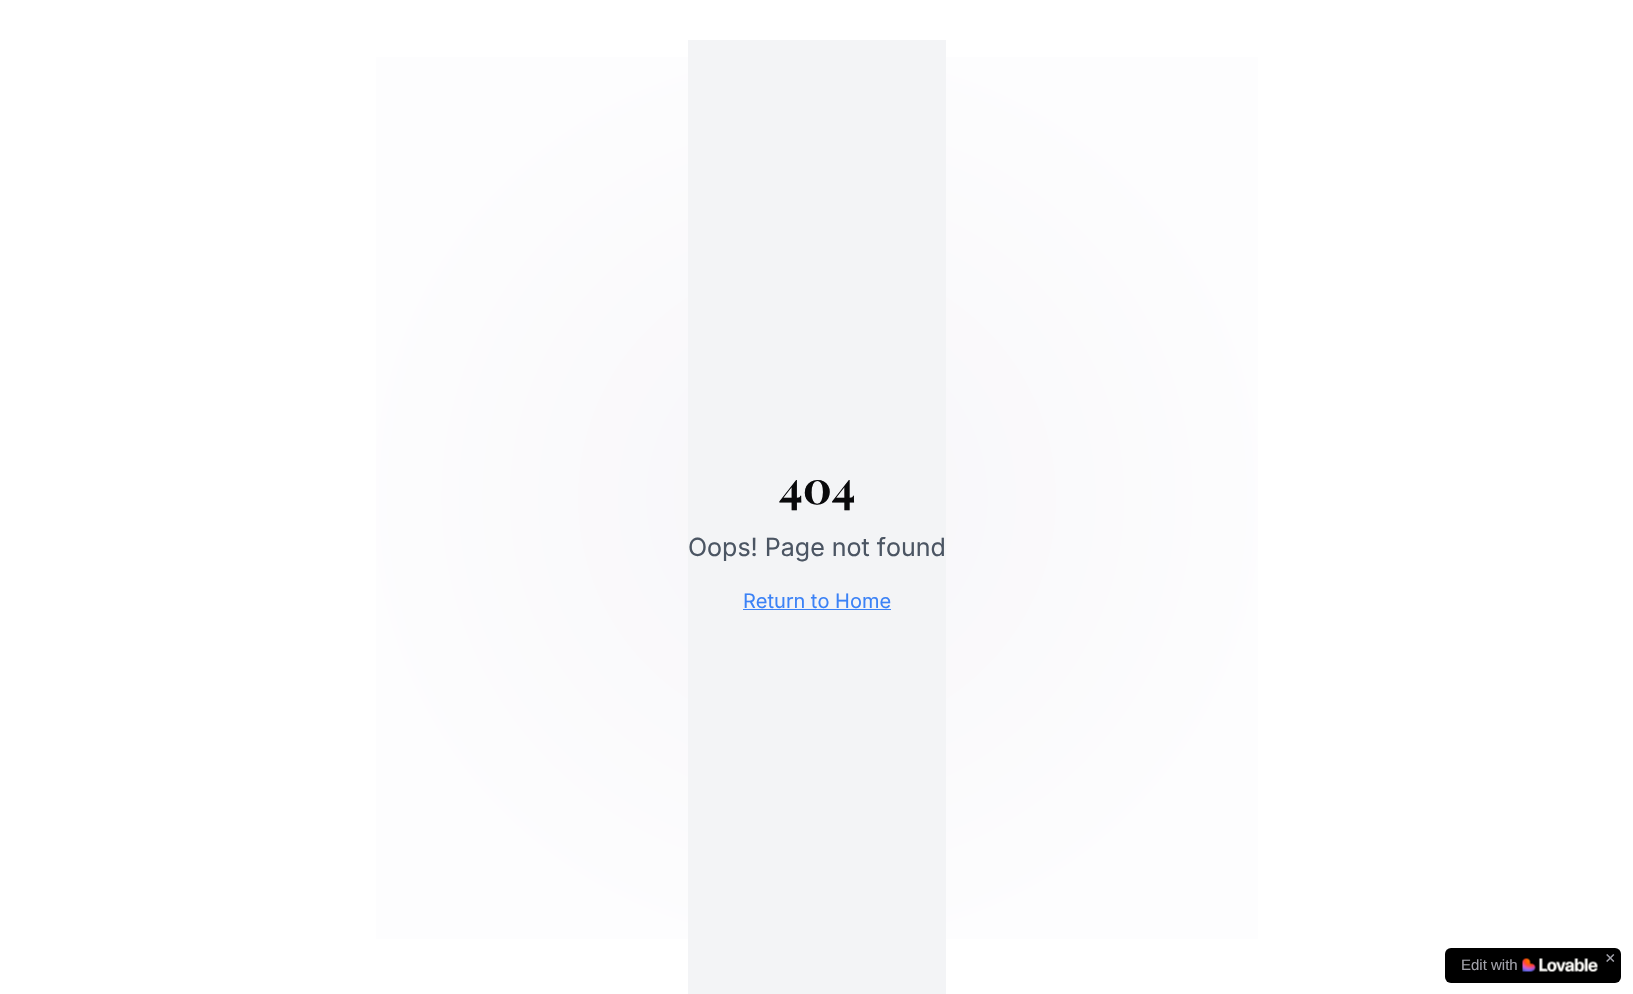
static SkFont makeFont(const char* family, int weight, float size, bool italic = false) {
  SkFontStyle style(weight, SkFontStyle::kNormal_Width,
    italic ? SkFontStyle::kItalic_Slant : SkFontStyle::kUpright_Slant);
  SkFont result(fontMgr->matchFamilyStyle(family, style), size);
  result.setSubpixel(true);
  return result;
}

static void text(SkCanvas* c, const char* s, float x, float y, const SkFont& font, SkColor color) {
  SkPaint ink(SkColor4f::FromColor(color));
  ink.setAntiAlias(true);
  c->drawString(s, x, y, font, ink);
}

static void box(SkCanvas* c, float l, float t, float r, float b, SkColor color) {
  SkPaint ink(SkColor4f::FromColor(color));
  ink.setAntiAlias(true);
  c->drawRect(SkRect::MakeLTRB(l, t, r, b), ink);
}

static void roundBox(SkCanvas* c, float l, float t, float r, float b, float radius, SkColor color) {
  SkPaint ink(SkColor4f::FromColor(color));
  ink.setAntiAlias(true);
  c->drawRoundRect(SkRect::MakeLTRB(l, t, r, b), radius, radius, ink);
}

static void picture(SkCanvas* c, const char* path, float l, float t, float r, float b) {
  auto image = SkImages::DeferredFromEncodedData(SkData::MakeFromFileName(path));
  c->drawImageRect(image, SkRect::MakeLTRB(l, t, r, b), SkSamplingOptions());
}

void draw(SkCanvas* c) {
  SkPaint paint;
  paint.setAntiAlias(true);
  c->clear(0xffffffff);
  {
    const SkColor colors[] = {0xfff7f6f9, 0xfffdfdfe};
    const float stops[] = {0, 0.5f};
    paint.setShader(SkGradientShader::MakeRadial({817, 498}, 956, colors, stops, 2, SkTileMode::kClamp));
    paint.setAlpha(255);
  }
  c->drawRect(SkRect::MakeLTRB(376, 57, 1258, 939), paint);
  box(c, 688, 40, 946, 994, 0xfff3f4f6);
  SkFont face1 = makeFont("Playfair Display", 700, 45);
  text(c, "404", 779, 504, face1, 0xff09090b);
  SkFont face2 = makeFont("Inter", 400, 25);
  text(c, "Oops! Page not found", 688, 556, face2, 0xff4b5563);
  SkFont face3 = makeFont("Inter", 400, 20);
  text(c, "Return to Home", 743, 608, face3, 0xff3b82f6);
  box(c, 743, 609, 891, 610, 0xff3b82f6);
  roundBox(c, 1445, 948, 1621, 983, 6, 0xff000000);
  SkFont face4 = makeFont("Liberation Sans", 400, 15);
  text(c, "Edit with", 1461, 970, face4, 0xffa1a1aa);
  picture(c, "img_01.png", 1522, 958, 1598, 972);
  SkFont face5 = makeFont("Liberation Sans", 400, 18);
  text(c, "×", 1605, 964, face5, 0xffa1a1aa);
}
